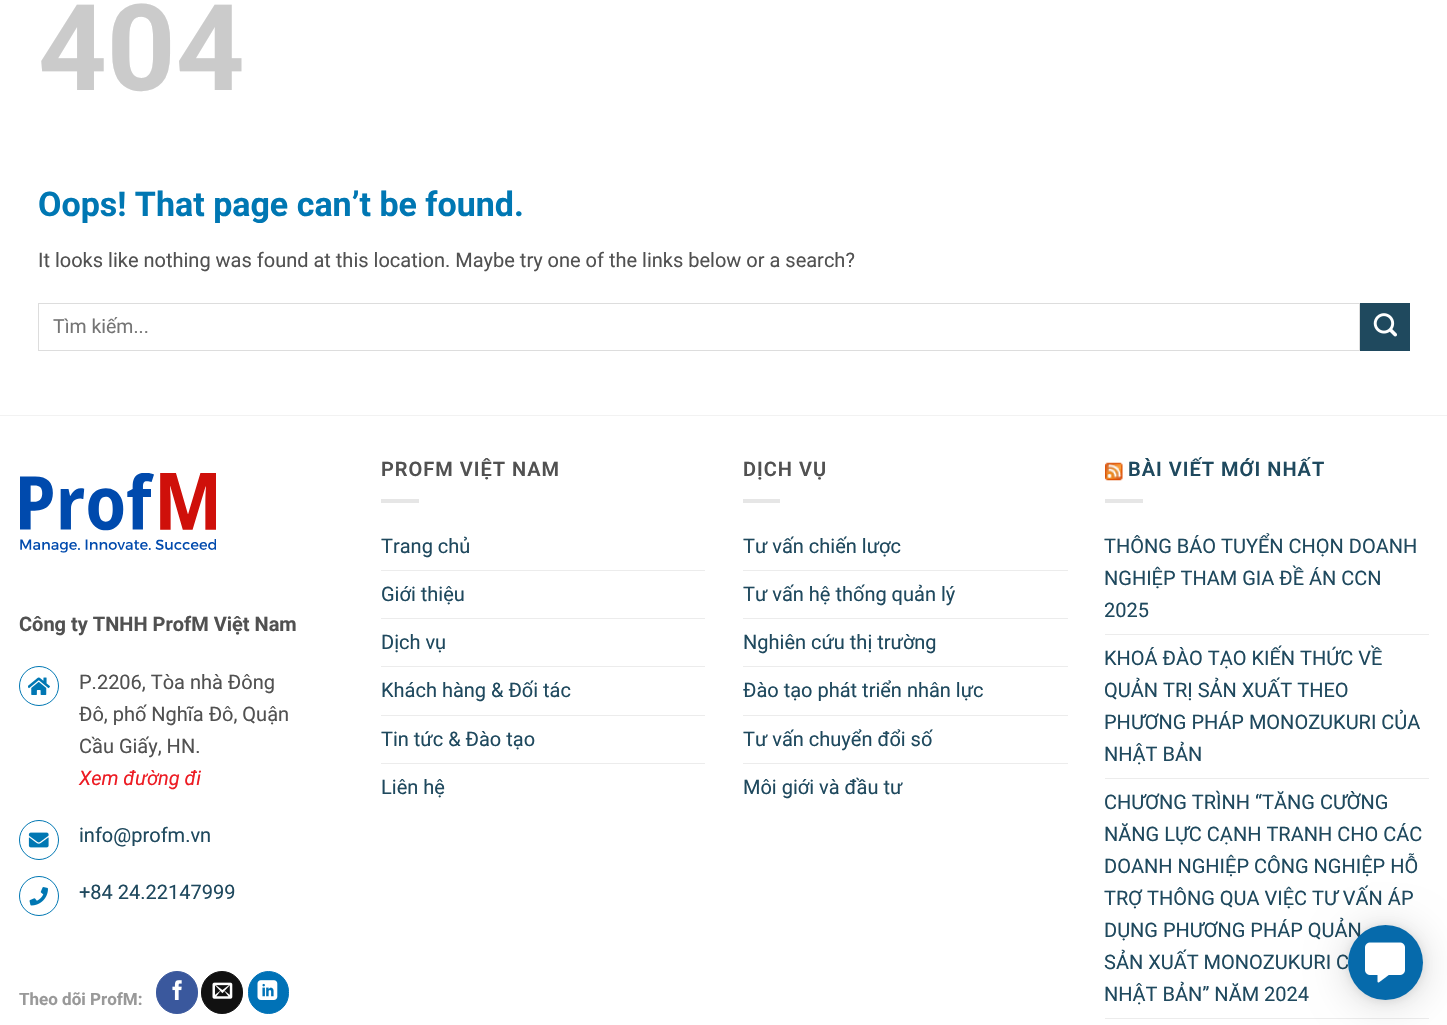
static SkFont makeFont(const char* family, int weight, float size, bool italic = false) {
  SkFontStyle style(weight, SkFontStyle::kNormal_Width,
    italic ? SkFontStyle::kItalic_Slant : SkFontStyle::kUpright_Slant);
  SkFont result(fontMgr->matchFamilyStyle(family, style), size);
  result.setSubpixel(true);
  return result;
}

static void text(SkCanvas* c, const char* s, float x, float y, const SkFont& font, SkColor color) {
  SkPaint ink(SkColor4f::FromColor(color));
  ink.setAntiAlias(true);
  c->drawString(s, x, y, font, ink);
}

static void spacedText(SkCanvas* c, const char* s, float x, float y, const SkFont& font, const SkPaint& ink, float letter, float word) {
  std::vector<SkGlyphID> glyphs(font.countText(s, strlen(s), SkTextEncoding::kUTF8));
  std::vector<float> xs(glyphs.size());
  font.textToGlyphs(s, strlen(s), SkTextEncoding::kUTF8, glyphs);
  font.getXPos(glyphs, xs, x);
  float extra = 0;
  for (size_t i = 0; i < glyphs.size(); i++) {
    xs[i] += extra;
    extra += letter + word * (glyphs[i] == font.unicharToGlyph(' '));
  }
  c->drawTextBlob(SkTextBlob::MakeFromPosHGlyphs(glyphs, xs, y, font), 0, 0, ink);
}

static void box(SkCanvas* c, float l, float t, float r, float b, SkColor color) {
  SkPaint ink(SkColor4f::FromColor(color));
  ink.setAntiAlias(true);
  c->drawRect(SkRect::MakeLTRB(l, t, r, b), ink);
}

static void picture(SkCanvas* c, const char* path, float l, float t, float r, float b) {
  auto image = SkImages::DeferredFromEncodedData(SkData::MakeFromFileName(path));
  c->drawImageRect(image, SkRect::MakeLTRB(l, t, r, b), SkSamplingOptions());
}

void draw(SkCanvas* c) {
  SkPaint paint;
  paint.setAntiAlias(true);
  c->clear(0xffffffff);
  SkFont face1 = makeFont("Roboto", 700, 120);
  text(c, "404", 38, 90, face1, 0xffcbcbcb);
  SkFont face2 = makeFont("Roboto", 700, 34);
  text(c, "Oops! That page can’t be found.", 38, 216, face2, 0xff0077b3);
  SkFont face3 = makeFont("Roboto", 400, 20);
  text(c, "It looks like nothing was found at this location. Maybe try one of the links below or a search?", 38, 267, face3, 0xff515151);
  paint.setStyle(SkPaint::kStroke_Style);
  paint.setStrokeWidth(1);
  paint.setColor(0xffdddddd);
  c->drawRect(SkRect::MakeLTRB(38.5f, 303.5f, 1359.5f, 350.5f), paint);
  SkFont face4 = makeFont("Roboto", 400, 19.5f);
  text(c, "Tìm kiếm...", 53, 333, face4, 0xff757575);
  box(c, 1360, 303, 1410, 351, 0xff1f495e);
  picture(c, "img_01.png", 1373, 313, 1397, 337);
  box(c, 0, 415, 1447, 416, 0xfff2f2f2);
  picture(c, "img_02.png", 20, 473, 216, 553);
  SkFont face5 = makeFont("Roboto", 700, 20);
  text(c, "Công ty TNHH ProfM Việt Nam", 19, 631, face5, 0xff515151);
  paint.setColor(0xff0077b3);
  c->drawCircle(39, 686, 19.5f, paint);
  picture(c, "img_03.png", 28, 677, 50, 695);
  text(c, "P.2206, Tòa nhà Đông", 79, 689, face3, 0xff515151);
  text(c, "Đô, phố Nghĩa Đô, Quận", 79, 721, face3, 0xff515151);
  text(c, "Cầu Giấy, HN.", 79, 753, face3, 0xff515151);
  SkFont face6 = makeFont("Roboto", 400, 20, true);
  text(c, "Xem đường đi", 79, 785, face6, 0xffed1c24);
  c->drawCircle(39, 840, 19.5f, paint);
  picture(c, "img_04.png", 28, 832, 49, 848);
  text(c, "info@profm.vn", 79, 842, face3, 0xff1f495e);
  c->drawCircle(39, 896, 19.5f, paint);
  picture(c, "img_05.png", 29, 887, 48, 906);
  text(c, "+84 24.22147999", 79, 899, face3, 0xff1f495e);
  SkFont face7 = makeFont("Roboto", 700, 17);
  text(c, "Theo dõi ProfM:", 19, 1005, face7, 0xff999999);
  paint.setStyle(SkPaint::kFill_Style);
  paint.setColor(0xff3a589d);
  c->drawRoundRect(SkRect::MakeLTRB(156.5f, 971.5f, 197.5f, 1013.5f), 20.5f, 20.5f, paint);
  paint.setStyle(SkPaint::kStroke_Style);
  c->drawRoundRect(SkRect::MakeLTRB(156.5f, 971.5f, 197.5f, 1013.5f), 20.5f, 20.5f, paint);
  picture(c, "img_06.png", 172, 980, 182, 1000);
  paint.setStyle(SkPaint::kFill_Style);
  paint.setColor(0xff111111);
  c->drawRoundRect(SkRect::MakeLTRB(201.5f, 971.5f, 242.5f, 1013.5f), 20.5f, 20.5f, paint);
  paint.setStyle(SkPaint::kStroke_Style);
  c->drawRoundRect(SkRect::MakeLTRB(201.5f, 971.5f, 242.5f, 1013.5f), 20.5f, 20.5f, paint);
  picture(c, "img_07.png", 212, 982, 233, 999);
  paint.setStyle(SkPaint::kFill_Style);
  paint.setColor(0xff0072b7);
  c->drawRoundRect(SkRect::MakeLTRB(248.5f, 971.5f, 288.5f, 1013.5f), 20, 20, paint);
  paint.setStyle(SkPaint::kStroke_Style);
  c->drawRoundRect(SkRect::MakeLTRB(248.5f, 971.5f, 288.5f, 1013.5f), 20, 20, paint);
  picture(c, "img_08.png", 257, 980, 278, 1000);
  SkFont face8 = makeFont("Roboto", 600, 20);
  paint.setStyle(SkPaint::kFill_Style);
  paint.setColor(0xff515151);
  spacedText(c, "PROFM VIỆT NAM", 381, 476, face8, paint, 1, 0);
  box(c, 381, 499, 419, 503, 0xffe6e6e6);
  text(c, "Trang chủ", 381, 553, face3, 0xff1f495e);
  box(c, 381, 570, 705, 571, 0xffececec);
  text(c, "Giới thiệu", 381, 601, face3, 0xff1f495e);
  box(c, 381, 618, 705, 619, 0xffececec);
  text(c, "Dịch vụ", 381, 649, face3, 0xff1f495e);
  box(c, 381, 666, 705, 667, 0xffececec);
  text(c, "Khách hàng & Đối tác", 381, 697, face3, 0xff1f495e);
  box(c, 381, 715, 705, 716, 0xffececec);
  text(c, "Tin tức & Đào tạo", 381, 746, face3, 0xff1f495e);
  box(c, 381, 763, 705, 764, 0xffececec);
  text(c, "Liên hệ", 381, 794, face3, 0xff1f495e);
  spacedText(c, "DỊCH VỤ", 743, 476, face8, paint, 1, 0);
  box(c, 743, 499, 780, 503, 0xffe6e6e6);
  text(c, "Tư vấn chiến lược", 743, 553, face3, 0xff1f495e);
  box(c, 743, 570, 1068, 571, 0xffececec);
  text(c, "Tư vấn hệ thống quản lý", 743, 601, face3, 0xff1f495e);
  box(c, 743, 618, 1068, 619, 0xffececec);
  text(c, "Nghiên cứu thị trường", 743, 649, face3, 0xff1f495e);
  box(c, 743, 666, 1068, 667, 0xffececec);
  text(c, "Đào tạo phát triển nhân lực", 743, 697, face3, 0xff1f495e);
  box(c, 743, 715, 1068, 716, 0xffececec);
  text(c, "Tư vấn chuyển đổi số", 743, 746, face3, 0xff1f495e);
  box(c, 743, 763, 1068, 764, 0xffececec);
  text(c, "Môi giới và đầu tư", 743, 794, face3, 0xff1f495e);
  picture(c, "img_09.png", 1105, 462, 1123, 481);
  paint.setColor(0xff1f495e);
  spacedText(c, "BÀI VIẾT MỚI NHẤT", 1128, 476, face8, paint, 1, 0);
  box(c, 1105, 499, 1143, 503, 0xffe6e6e6);
  text(c, "THÔNG BÁO TUYỂN CHỌN DOANH", 1104, 553, face3, 0xff1f495e);
  text(c, "NGHIỆP THAM GIA ĐỀ ÁN CCN", 1104, 585, face3, 0xff1f495e);
  text(c, "2025", 1104, 617, face3, 0xff1f495e);
  box(c, 1105, 634, 1429, 635, 0xffececec);
  text(c, "KHOÁ ĐÀO TẠO KIẾN THỨC VỀ", 1104, 665, face3, 0xff1f495e);
  text(c, "QUẢN TRỊ SẢN XUẤT THEO", 1104, 697, face3, 0xff1f495e);
  text(c, "PHƯƠNG PHÁP MONOZUKURI CỦA", 1104, 729, face3, 0xff1f495e);
  text(c, "NHẬT BẢN", 1104, 761, face3, 0xff1f495e);
  box(c, 1105, 778, 1429, 779, 0xffececec);
  text(c, "CHƯƠNG TRÌNH “TĂNG CƯỜNG", 1104, 809, face3, 0xff1f495e);
  text(c, "NĂNG LỰC CẠNH TRANH CHO CÁC", 1104, 841, face3, 0xff1f495e);
  text(c, "DOANH NGHIỆP CÔNG NGHIỆP HỖ", 1104, 873, face3, 0xff1f495e);
  text(c, "TRỢ THÔNG QUA VIỆC TƯ VẤN ÁP", 1104, 905, face3, 0xff1f495e);
  text(c, "DỤNG PHƯƠNG PHÁP QUẢN", 1104, 937, face3, 0xff1f495e);
  text(c, "SẢN XUẤT MONOZUKURI C", 1104, 969, face3, 0xff1f495e);
  text(c, "NHẬT BẢN” NĂM 2024", 1104, 1001, face3, 0xff1f495e);
  box(c, 1105, 1018, 1429, 1019, 0xffececec);
  paint.setColor(0x29000000);
  paint.setMaskFilter(SkMaskFilter::MakeBlur(kNormal_SkBlurStyle, 20));
  c->drawRoundRect(SkRect::MakeLTRB(1348, 928, 1423, 1003), 37.5f, 37.5f, paint);
  paint.setMaskFilter(nullptr);
  paint.setColor(0x1a000000);
  paint.setMaskFilter(SkMaskFilter::MakeBlur(kNormal_SkBlurStyle, 4));
  c->drawRoundRect(SkRect::MakeLTRB(1348, 926, 1423, 1001), 37.5f, 37.5f, paint);
  paint.setMaskFilter(nullptr);
  paint.setColor(0xff066aab);
  c->drawCircle(1385.5f, 962.5f, 37.5f, paint);
  picture(c, "img_10.png", 1365, 942, 1405, 983);
}
